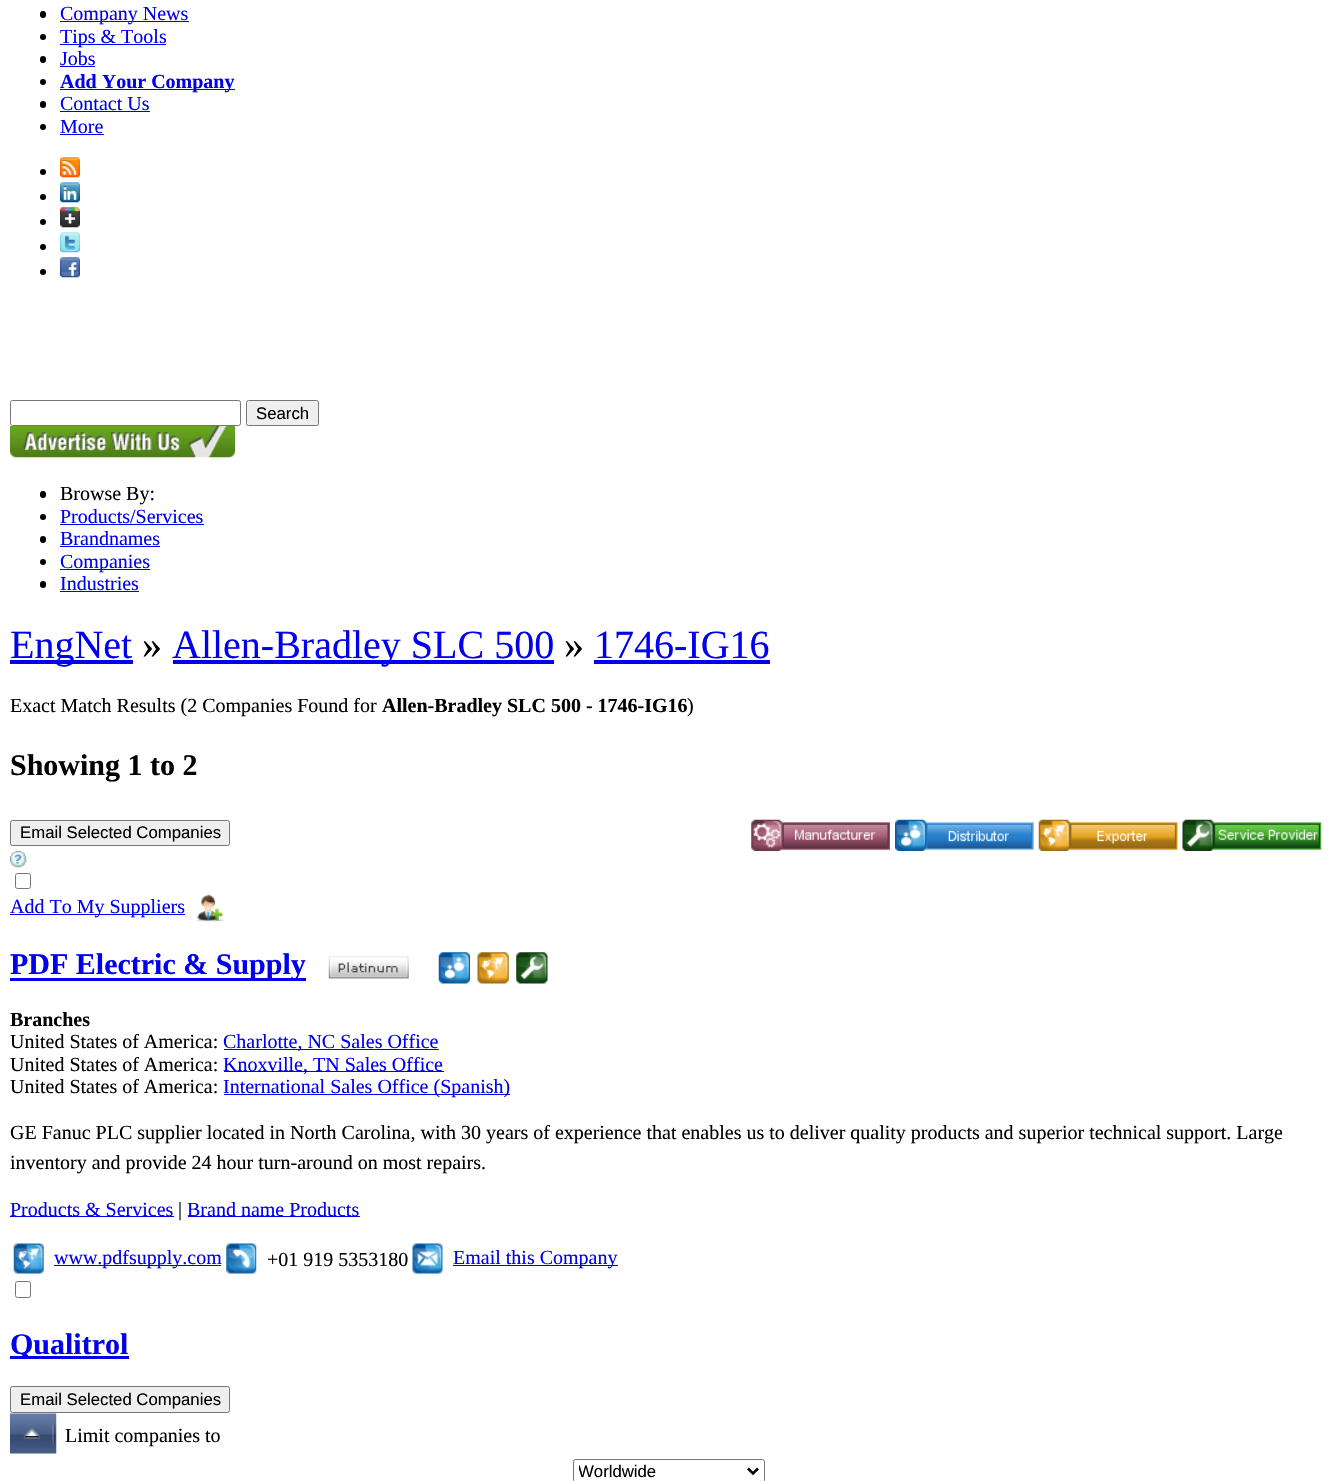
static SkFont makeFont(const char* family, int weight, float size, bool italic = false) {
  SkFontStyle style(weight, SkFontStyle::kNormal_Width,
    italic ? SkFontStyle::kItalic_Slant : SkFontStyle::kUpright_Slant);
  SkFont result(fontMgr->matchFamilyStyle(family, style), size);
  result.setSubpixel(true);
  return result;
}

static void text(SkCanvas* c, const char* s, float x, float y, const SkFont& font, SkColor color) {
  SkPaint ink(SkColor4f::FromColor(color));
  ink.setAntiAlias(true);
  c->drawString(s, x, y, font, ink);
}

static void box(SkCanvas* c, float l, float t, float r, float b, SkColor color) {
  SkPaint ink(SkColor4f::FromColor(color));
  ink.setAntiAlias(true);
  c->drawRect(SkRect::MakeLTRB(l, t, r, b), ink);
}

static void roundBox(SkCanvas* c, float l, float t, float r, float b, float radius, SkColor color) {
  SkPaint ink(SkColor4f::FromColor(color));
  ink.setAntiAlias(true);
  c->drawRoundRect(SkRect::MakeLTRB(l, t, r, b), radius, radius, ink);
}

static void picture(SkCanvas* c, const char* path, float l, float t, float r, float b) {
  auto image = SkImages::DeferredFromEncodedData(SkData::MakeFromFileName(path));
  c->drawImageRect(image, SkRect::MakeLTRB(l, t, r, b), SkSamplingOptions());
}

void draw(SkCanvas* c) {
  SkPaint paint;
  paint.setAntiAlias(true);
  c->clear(0xffffffff);
  roundBox(c, 40, 11, 46, 18, 3, 0xff000000);
  box(c, 60, 21, 189, 22, 0xff0000ee);
  SkFont face1 = makeFont("Liberation Serif", 400, 20);
  text(c, "Company News", 60, 20, face1, 0xff0000ee);
  paint.setColor(0xff000000);
  c->drawCircle(43, 37, 3, paint);
  box(c, 60, 44, 166, 45, 0xff0000ee);
  text(c, "Tips & Tools", 60, 43, face1, 0xff0000ee);
  roundBox(c, 40, 56, 46, 63, 3, 0xff000000);
  text(c, "Jobs", 60, 65, face1, 0xff0000ee);
  box(c, 60, 66, 95, 67, 0xff0000ee);
  c->drawCircle(43, 82, 3, paint);
  box(c, 60, 89, 235, 90, 0xff0000ee);
  SkFont face2 = makeFont("Liberation Serif", 700, 20);
  text(c, "Add Your Company", 60, 88, face2, 0xff0000ee);
  roundBox(c, 40, 101, 46, 108, 3, 0xff000000);
  text(c, "Contact Us", 60, 110, face1, 0xff0000ee);
  box(c, 60, 111, 150, 112, 0xff0000ee);
  c->drawCircle(43, 127, 3, paint);
  text(c, "More", 60, 133, face1, 0xff0000ee);
  box(c, 60, 134, 104, 135, 0xff0000ee);
  c->drawCircle(43, 172, 3, paint);
  picture(c, "img_01.png", 60, 157, 80, 178);
  c->drawCircle(43, 197, 3, paint);
  picture(c, "img_02.png", 60, 182, 80, 203);
  c->drawCircle(43, 222, 3, paint);
  picture(c, "img_03.png", 60, 207, 80, 228);
  c->drawCircle(43, 247, 3, paint);
  picture(c, "img_04.png", 60, 232, 80, 253);
  c->drawCircle(43, 272, 3, paint);
  picture(c, "img_05.png", 60, 257, 80, 278);
  paint.setStyle(SkPaint::kStroke_Style);
  paint.setStrokeWidth(1);
  paint.setColor(0xff767676);
  c->drawRoundRect(SkRect::MakeLTRB(10.5f, 400.5f, 240.5f, 425.5f), 2, 2, paint);
  paint.setStyle(SkPaint::kFill_Style);
  paint.setColor(0xffefefef);
  c->drawRoundRect(SkRect::MakeLTRB(246.5f, 400.5f, 318.5f, 425.5f), 2, 2, paint);
  paint.setStyle(SkPaint::kStroke_Style);
  paint.setColor(0xff767676);
  c->drawRoundRect(SkRect::MakeLTRB(246.5f, 400.5f, 318.5f, 425.5f), 2, 2, paint);
  SkFont face3 = makeFont("Liberation Sans", 400, 16.75f);
  text(c, "Search", 256, 419, face3, 0xff000000);
  picture(c, "img_06.png", 10, 426, 235, 458);
  roundBox(c, 40, 491, 46, 498, 3, 0xff000000);
  text(c, "Browse By:", 60, 500, face1, 0xff000000);
  paint.setStyle(SkPaint::kFill_Style);
  paint.setColor(0xff000000);
  c->drawCircle(43, 517, 3, paint);
  text(c, "Products/Services", 60, 523, face1, 0xff0000ee);
  box(c, 60, 524, 204, 525, 0xff0000ee);
  roundBox(c, 40, 536, 46, 543, 3, 0xff000000);
  text(c, "Brandnames", 60, 545, face1, 0xff0000ee);
  box(c, 60, 546, 160, 547, 0xff0000ee);
  c->drawCircle(43, 562, 3, paint);
  box(c, 60, 569, 150, 570, 0xff0000ee);
  text(c, "Companies", 60, 568, face1, 0xff0000ee);
  roundBox(c, 40, 581, 46, 588, 3, 0xff000000);
  text(c, "Industries", 60, 590, face1, 0xff0000ee);
  box(c, 60, 591, 139, 592, 0xff0000ee);
  box(c, 10, 660, 133, 664, 0xff0000ee);
  SkFont face4 = makeFont("Liberation Serif", 400, 40);
  text(c, "EngNet", 10, 658, face4, 0xff0000ee);
  text(c, "»", 142, 658, face4, 0xff000000);
  box(c, 173, 660, 554, 664, 0xff0000ee);
  text(c, "Allen-Bradley SLC 500", 172, 658, face4, 0xff0000ee);
  text(c, "»", 564, 658, face4, 0xff000000);
  text(c, "1746-IG16", 594, 658, face4, 0xff0000ee);
  box(c, 594, 660, 770, 664, 0xff0000ee);
  text(c, "Exact Match Results (2 Companies Found for", 10, 712, face1, 0xff000000);
  text(c, "Allen-Bradley SLC 500 - 1746-IG16", 382, 712, face2, 0xff000000);
  text(c, ")", 687, 712, face1, 0xff000000);
  SkFont face5 = makeFont("Liberation Serif", 700, 30);
  text(c, "Showing 1 to 2", 10, 775, face5, 0xff000000);
  paint.setColor(0xffefefef);
  c->drawRoundRect(SkRect::MakeLTRB(10.5f, 820.5f, 229.5f, 845.5f), 2, 2, paint);
  paint.setStyle(SkPaint::kStroke_Style);
  paint.setColor(0xff767676);
  c->drawRoundRect(SkRect::MakeLTRB(10.5f, 820.5f, 229.5f, 845.5f), 2, 2, paint);
  text(c, "Email Selected Companies", 20, 838, face3, 0xff000000);
  picture(c, "img_07.png", 10, 851, 27, 868);
  picture(c, "img_08.png", 751, 819, 890, 851);
  picture(c, "img_09.png", 895, 819, 1034, 851);
  picture(c, "img_10.png", 1038, 819, 1178, 851);
  picture(c, "img_11.png", 1182, 819, 1322, 851);
  c->drawRoundRect(SkRect::MakeLTRB(15.5f, 873.5f, 30.5f, 888.5f), 2, 2, paint);
  box(c, 10, 914, 185, 915, 0xff0000ee);
  text(c, "Add To My Suppliers", 10, 913, face1, 0xff0000ee);
  picture(c, "img_12.png", 196, 894, 224, 922);
  box(c, 10, 978, 306, 981, 0xff0000ee);
  text(c, "PDF Electric & Supply", 10, 974, face5, 0xff0000ee);
  picture(c, "img_13.png", 328, 956, 409, 979);
  picture(c, "img_14.png", 438, 952, 470, 984);
  picture(c, "img_15.png", 477, 952, 509, 984);
  picture(c, "img_16.png", 516, 952, 548, 984);
  text(c, "Branches", 10, 1026, face2, 0xff000000);
  text(c, "United States of America:", 10, 1048, face1, 0xff000000);
  box(c, 224, 1049, 439, 1050, 0xff0000ee);
  text(c, "Charlotte, NC Sales Office", 223, 1048, face1, 0xff0000ee);
  text(c, "United States of America:", 10, 1071, face1, 0xff000000);
  box(c, 224, 1071, 444, 1072, 0xff0000ee);
  text(c, "Knoxville, TN Sales Office", 223, 1071, face1, 0xff0000ee);
  text(c, "United States of America:", 10, 1093, face1, 0xff000000);
  box(c, 224, 1094, 510, 1095, 0xff0000ee);
  text(c, "International Sales Office (Spanish)", 223, 1093, face1, 0xff0000ee);
  text(c, "GE Fanuc PLC supplier located in North Carolina, with 30 years of experience that enables us to deliver quality products and superior technical support. Large", 10, 1139, face1, 0xff000000);
  text(c, "inventory and provide 24 hour turn-around on most repairs.", 10, 1169, face1, 0xff000000);
  box(c, 10, 1216, 174, 1217, 0xff0000ee);
  text(c, "Products & Services", 10, 1216, face1, 0xff0000ee);
  text(c, "|", 178, 1216, face1, 0xff000000);
  box(c, 188, 1216, 360, 1217, 0xff0000ee);
  text(c, "Brand name Products", 187, 1216, face1, 0xff0000ee);
  picture(c, "img_17.png", 13, 1243, 44, 1274);
  box(c, 54, 1265, 221, 1266, 0xff0000ee);
  text(c, "www.pdfsupply.com", 54, 1264, face1, 0xff0000ee);
  picture(c, "img_18.png", 226, 1243, 257, 1274);
  text(c, "+01 919 5353180", 267, 1266, face1, 0xff000000);
  picture(c, "img_19.png", 412, 1243, 443, 1274);
  box(c, 453, 1265, 618, 1266, 0xff0000ee);
  text(c, "Email this Company", 453, 1264, face1, 0xff0000ee);
  c->drawRoundRect(SkRect::MakeLTRB(15.5f, 1281.5f, 30.5f, 1297.5f), 2, 2, paint);
  box(c, 10, 1356, 129, 1359, 0xff0000ee);
  text(c, "Qualitrol", 10, 1354, face5, 0xff0000ee);
  picture(c, "img_20.png", 10, 1412, 57, 1454);
  paint.setStyle(SkPaint::kFill_Style);
  paint.setColor(0xffefefef);
  c->drawRoundRect(SkRect::MakeLTRB(10.5f, 1386.5f, 229.5f, 1412.5f), 2, 2, paint);
  paint.setStyle(SkPaint::kStroke_Style);
  paint.setColor(0xff767676);
  c->drawRoundRect(SkRect::MakeLTRB(10.5f, 1386.5f, 229.5f, 1412.5f), 2, 2, paint);
  text(c, "Email Selected Companies", 20, 1405, face3, 0xff000000);
  text(c, "Limit companies to", 65, 1442, face1, 0xff000000);
  c->drawRoundRect(SkRect::MakeLTRB(573.5f, 1459.5f, 764.5f, 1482.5f), 2, 2, paint);
  paint.setStrokeWidth(2.5f);
  paint.setColor(0xff000000);
  c->drawPath(SkPathBuilder().moveTo(748, 1468.5f).lineTo(753, 1473.5f).lineTo(758, 1468.5f).detach(), paint);
  c->save();
  c->clipRect(SkRect::MakeLTRB(579, 1460, 744, 1481));
  text(c, "Worldwide", 578, 1477, face3, 0xff000000);
  c->restore();
}
